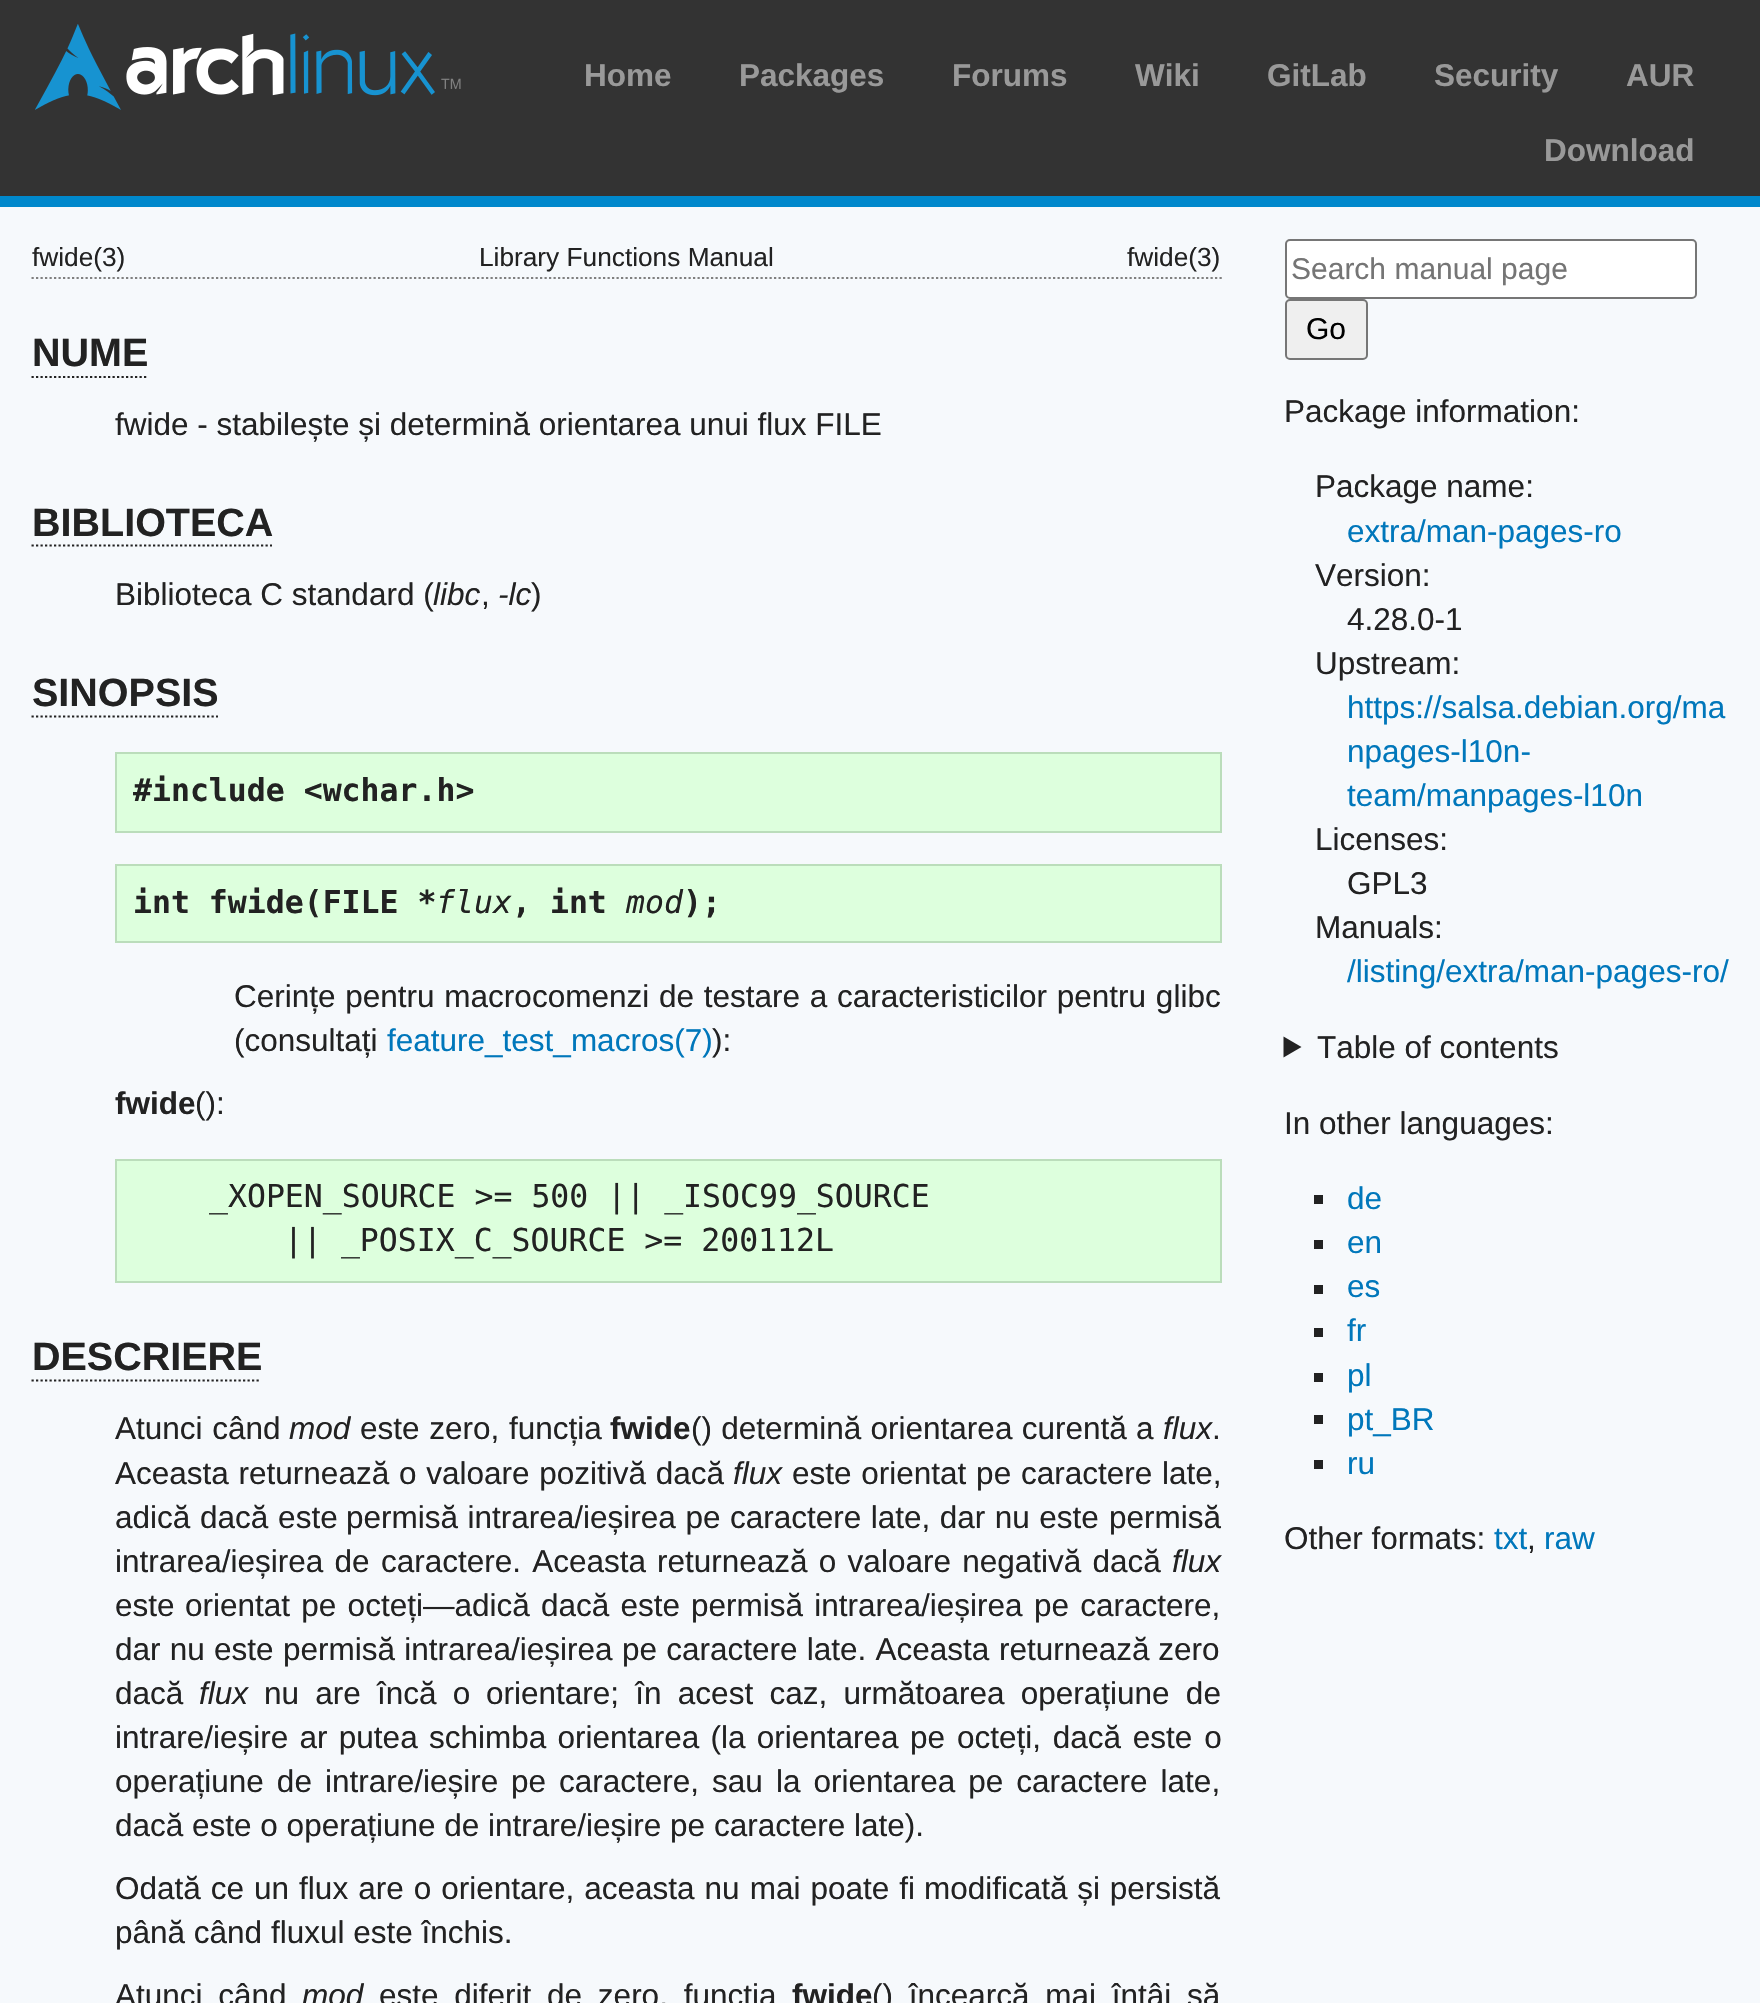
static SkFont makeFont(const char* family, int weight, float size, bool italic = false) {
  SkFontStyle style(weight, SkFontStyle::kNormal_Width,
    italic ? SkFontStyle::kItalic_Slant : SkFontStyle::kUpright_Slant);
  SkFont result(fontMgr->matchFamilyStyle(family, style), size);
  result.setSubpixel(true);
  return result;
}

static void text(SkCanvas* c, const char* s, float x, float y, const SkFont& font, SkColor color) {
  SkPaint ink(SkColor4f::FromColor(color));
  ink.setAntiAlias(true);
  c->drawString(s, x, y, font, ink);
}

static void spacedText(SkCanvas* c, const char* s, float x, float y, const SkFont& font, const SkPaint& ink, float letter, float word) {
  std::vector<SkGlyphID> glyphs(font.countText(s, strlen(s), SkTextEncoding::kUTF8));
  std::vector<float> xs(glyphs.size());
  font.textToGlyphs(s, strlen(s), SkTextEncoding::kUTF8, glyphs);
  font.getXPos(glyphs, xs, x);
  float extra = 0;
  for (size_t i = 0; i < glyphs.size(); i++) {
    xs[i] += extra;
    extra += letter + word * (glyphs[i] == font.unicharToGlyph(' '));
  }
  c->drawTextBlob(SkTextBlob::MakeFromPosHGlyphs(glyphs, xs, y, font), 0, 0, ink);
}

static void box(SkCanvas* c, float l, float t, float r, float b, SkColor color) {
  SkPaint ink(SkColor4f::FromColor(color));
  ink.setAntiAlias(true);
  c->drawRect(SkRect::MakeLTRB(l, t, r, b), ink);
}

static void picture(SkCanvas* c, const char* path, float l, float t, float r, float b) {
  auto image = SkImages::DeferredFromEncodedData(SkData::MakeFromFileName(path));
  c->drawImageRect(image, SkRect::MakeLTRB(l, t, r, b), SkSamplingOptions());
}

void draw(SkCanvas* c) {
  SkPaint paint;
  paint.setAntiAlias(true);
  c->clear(0xfff6f9fc);
  box(c, 0, 0, 1760, 196, 0xff333333);
  box(c, 0, 196, 1760, 207, 0xff0088cc);
  picture(c, "img_01.png", 35, 24, 461, 110);
  SkFont face1 = makeFont("Liberation Sans", 700, 31.5f);
  text(c, "Home", 584, 86, face1, 0xff999999);
  text(c, "Packages", 739, 86, face1, 0xff999999);
  text(c, "Forums", 952, 86, face1, 0xff999999);
  text(c, "Wiki", 1135, 86, face1, 0xff999999);
  text(c, "GitLab", 1267, 86, face1, 0xff999999);
  text(c, "Security", 1434, 86, face1, 0xff999999);
  text(c, "AUR", 1626, 86, face1, 0xff999999);
  text(c, "Download", 1544, 161, face1, 0xff999999);
  paint.setStyle(SkPaint::kStroke_Style);
  paint.setStrokeWidth(2.2f);
  paint.setColor(0xff808080);
  paint.setPathEffect(SkDashPathEffect::Make({{2.25f, 2.25f}}, 0));
  c->drawPath(SkPathBuilder().moveTo(31.5f, 278).lineTo(1222, 278).detach(), paint);
  paint.setPathEffect(nullptr);
  SkFont face2 = makeFont("Liberation Sans", 400, 26.25f);
  text(c, "fwide(3)", 32, 266, face2, 0xff222222);
  text(c, "Library Functions Manual", 479, 266, face2, 0xff222222);
  text(c, "fwide(3)", 1127, 266, face2, 0xff222222);
  SkFont face3 = makeFont("Liberation Sans", 700, 39.5f);
  text(c, "NUME", 32, 366, face3, 0xff222222);
  paint.setColor(0xff222222);
  paint.setPathEffect(SkDashPathEffect::Make({{2.25f, 2.25f}}, 0));
  c->drawPath(SkPathBuilder().moveTo(31.5f, 377).lineTo(148.5f, 377).detach(), paint);
  paint.setPathEffect(nullptr);
  SkFont face4 = makeFont("Liberation Sans", 400, 31.5f);
  text(c, "fwide - stabilește și determină orientarea unui flux FILE", 115, 435, face4, 0xff222222);
  text(c, "BIBLIOTECA", 32, 536, face3, 0xff222222);
  paint.setPathEffect(SkDashPathEffect::Make({{2.25f, 2.25f}}, 0));
  c->drawPath(SkPathBuilder().moveTo(31.5f, 545.5f).lineTo(272, 545.5f).detach(), paint);
  paint.setPathEffect(nullptr);
  text(c, "Biblioteca C standard (", 115, 605, face4, 0xff222222);
  SkFont face5 = makeFont("Liberation Sans", 400, 31.5f, true);
  text(c, "libc", 433, 605, face5, 0xff222222);
  text(c, ",", 481, 605, face4, 0xff222222);
  text(c, "-lc", 498, 605, face5, 0xff222222);
  text(c, ")", 531, 605, face4, 0xff222222);
  text(c, "SINOPSIS", 32, 706, face3, 0xff222222);
  paint.setPathEffect(SkDashPathEffect::Make({{2.25f, 2.25f}}, 0));
  c->drawPath(SkPathBuilder().moveTo(31.5f, 716.5f).lineTo(218, 716.5f).detach(), paint);
  paint.setPathEffect(nullptr);
  paint.setStyle(SkPaint::kFill_Style);
  paint.setColor(0xffddffdd);
  c->drawRect(SkRect::MakeLTRB(116, 753, 1221, 832), paint);
  paint.setStyle(SkPaint::kStroke_Style);
  paint.setStrokeWidth(2);
  paint.setColor(0xffbbddbb);
  c->drawRect(SkRect::MakeLTRB(116, 753, 1221, 832), paint);
  SkFont face6 = makeFont("DejaVu Sans Mono", 700, 31.5f);
  text(c, "#include <wchar.h>", 133, 801, face6, 0xff222222);
  paint.setStyle(SkPaint::kFill_Style);
  paint.setColor(0xffddffdd);
  c->drawRect(SkRect::MakeLTRB(116, 865, 1221, 942), paint);
  paint.setStyle(SkPaint::kStroke_Style);
  paint.setColor(0xffbbddbb);
  c->drawRect(SkRect::MakeLTRB(116, 865, 1221, 942), paint);
  text(c, "int fwide(FILE *", 133, 913, face6, 0xff222222);
  SkFont face7 = makeFont("DejaVu Sans Mono", 400, 31.5f, true);
  text(c, "flux", 436, 913, face7, 0xff222222);
  text(c, ", int", 512, 913, face6, 0xff222222);
  text(c, "mod", 626, 913, face7, 0xff222222);
  text(c, ");", 683, 913, face6, 0xff222222);
  paint.setStyle(SkPaint::kFill_Style);
  paint.setColor(0xff222222);
  spacedText(c, "Cerințe pentru macrocomenzi de testare a", 234, 1007, face4, paint, 0, 1);
  spacedText(c, "caracteristicilor pentru glibc", 837, 1007, face4, paint, 0, 1);
  text(c, "(consultați", 234, 1051, face4, 0xff222222);
  text(c, "feature_test_macros(7)", 387, 1051, face4, 0xff0077bb);
  text(c, "):", 712, 1051, face4, 0xff222222);
  text(c, "fwide", 115, 1114, face1, 0xff222222);
  text(c, "():", 195, 1114, face4, 0xff222222);
  paint.setColor(0xffddffdd);
  c->drawRect(SkRect::MakeLTRB(116, 1160, 1221, 1282), paint);
  paint.setStyle(SkPaint::kStroke_Style);
  paint.setColor(0xffbbddbb);
  c->drawRect(SkRect::MakeLTRB(116, 1160, 1221, 1282), paint);
  SkFont face8 = makeFont("DejaVu Sans Mono", 400, 31.5f);
  text(c, "_XOPEN_SOURCE >= 500 || _ISOC99_SOURCE", 209, 1207, face8, 0xff222222);
  text(c, "|| _POSIX_C_SOURCE >= 200112L", 284, 1251, face8, 0xff222222);
  text(c, "DESCRIERE", 32, 1370, face3, 0xff222222);
  paint.setStrokeWidth(2.2f);
  paint.setColor(0xff222222);
  paint.setPathEffect(SkDashPathEffect::Make({{2.25f, 2.25f}}, 0));
  c->drawPath(SkPathBuilder().moveTo(31.5f, 1380.5f).lineTo(261, 1380.5f).detach(), paint);
  paint.setPathEffect(nullptr);
  paint.setStyle(SkPaint::kFill_Style);
  spacedText(c, "Atunci când", 115, 1439, face4, paint, 0, 1);
  text(c, "mod", 289, 1439, face5, 0xff222222);
  spacedText(c, "este zero, funcția", 360, 1439, face4, paint, 0, 1);
  text(c, "fwide", 610, 1439, face1, 0xff222222);
  spacedText(c, "() determină orientarea curentă a", 691, 1439, face4, paint, 0, 0.5f);
  text(c, "flux", 1163, 1439, face5, 0xff222222);
  text(c, ".", 1212, 1439, face4, 0xff222222);
  spacedText(c, "Aceasta returnează o valoare pozitivă dacă", 115, 1484, face4, paint, 0, 1);
  text(c, "flux", 733, 1484, face5, 0xff222222);
  spacedText(c, "este orientat pe caractere late,", 792, 1484, face4, paint, 0, 1);
  spacedText(c, "adică dacă este", 115, 1528, face4, paint, 0, 1);
  spacedText(c, "permisă intrarea/ieșirea pe caractere late, dar nu este", 346, 1528, face4, paint, 0, 0.75f);
  text(c, "permisă", 1109, 1528, face4, 0xff222222);
  spacedText(c, "intrarea/ieșirea de caractere. Aceasta", 115, 1572, face4, paint, 0, 2.5f);
  spacedText(c, "returnează o valoare negativă dacă", 657, 1572, face4, paint, 0, 2.5f);
  text(c, "flux", 1172, 1572, face5, 0xff222222);
  text(c, "este", 115, 1616, face4, 0xff222222);
  spacedText(c, "orientat pe octeți—adică dacă este", 185, 1616, face4, paint, 0, 2.5f);
  spacedText(c, "permisă intrarea/ieșirea pe caractere,", 691, 1616, face4, paint, 0, 2.5f);
  spacedText(c, "dar nu este", 115, 1660, face4, paint, 0, 0.5f);
  spacedText(c, "permisă intrarea/ieșirea pe caractere late. Aceasta", 283, 1660, face4, paint, 0, 0.5f);
  text(c, "returnează zero", 999, 1660, face4, 0xff222222);
  text(c, "dacă", 115, 1704, face4, 0xff222222);
  text(c, "flux", 199, 1704, face5, 0xff222222);
  spacedText(c, "nu are încă o", 264, 1704, face4, paint, 0, 7.5f);
  spacedText(c, "orientare; în acest caz, următoarea operațiune de", 486, 1704, face4, paint, 0, 7.5f);
  spacedText(c, "intrare/ieșire ar putea schimba orientarea (la orientarea pe", 115, 1748, face4, paint, 0, 2.5f);
  spacedText(c, "octeți, dacă este o", 957, 1748, face4, paint, 0, 3);
  spacedText(c, "operațiune de intrare/ieșire", 115, 1792, face4, paint, 0, 4.25f);
  spacedText(c, "pe caractere, sau la orientarea pe caractere late,", 511, 1792, face4, paint, 0, 4.25f);
  text(c, "dacă este o operațiune de intrare/ieșire pe caractere late).", 115, 1836, face4, 0xff222222);
  spacedText(c, "Odată ce un flux are o orientare, aceasta nu mai poate fi", 115, 1899, face4, paint, 0, 1.25f);
  spacedText(c, "modificată și persistă", 924, 1899, face4, paint, 0, 1);
  text(c, "până când fluxul este închis.", 115, 1943, face4, 0xff222222);
  spacedText(c, "Atunci când", 115, 2006, face4, paint, 0, 7);
  text(c, "mod", 302, 2006, face5, 0xff222222);
  spacedText(c, "este diferit de zero, funcția", 379, 2006, face4, paint, 0, 7);
  text(c, "fwide", 792, 2006, face1, 0xff222222);
  spacedText(c, "() încearcă mai întâi să", 872, 2006, face4, paint, 0, 7);
  paint.setColor(0xffffffff);
  c->drawRoundRect(SkRect::MakeLTRB(1286, 240, 1696, 298), 4, 4, paint);
  paint.setStyle(SkPaint::kStroke_Style);
  paint.setStrokeWidth(2);
  paint.setColor(0xff767676);
  c->drawRoundRect(SkRect::MakeLTRB(1286, 240, 1696, 298), 4, 4, paint);
  SkFont face9 = makeFont("Liberation Sans", 400, 30);
  text(c, "Search manual page", 1291, 279, face9, 0xff757575);
  paint.setStyle(SkPaint::kFill_Style);
  paint.setColor(0xffefefef);
  c->drawRoundRect(SkRect::MakeLTRB(1286, 300, 1367, 359), 4, 4, paint);
  paint.setStyle(SkPaint::kStroke_Style);
  paint.setColor(0xff767676);
  c->drawRoundRect(SkRect::MakeLTRB(1286, 300, 1367, 359), 4, 4, paint);
  text(c, "Go", 1306, 339, face9, 0xff000000);
  text(c, "Package information:", 1284, 422, face4, 0xff222222);
  text(c, "Package name:", 1315, 497, face4, 0xff222222);
  text(c, "extra/man-pages-ro", 1347, 542, face4, 0xff0077bb);
  text(c, "Version:", 1315, 586, face4, 0xff222222);
  text(c, "4.28.0-1", 1347, 630, face4, 0xff222222);
  text(c, "Upstream:", 1315, 674, face4, 0xff222222);
  text(c, "https://salsa.debian.org/ma", 1347, 718, face4, 0xff0077bb);
  text(c, "npages-l10n-", 1347, 762, face4, 0xff0077bb);
  text(c, "team/manpages-l10n", 1347, 806, face4, 0xff0077bb);
  text(c, "Licenses:", 1315, 850, face4, 0xff222222);
  text(c, "GPL3", 1347, 894, face4, 0xff222222);
  text(c, "Manuals:", 1315, 938, face4, 0xff222222);
  text(c, "/listing/extra/man-pages-ro/", 1347, 982, face4, 0xff0077bb);
  paint.setStyle(SkPaint::kFill_Style);
  paint.setColor(0xff222222);
  c->drawPath(SkPathBuilder().moveTo(1283.5f, 1036.5f).lineTo(1301.5f, 1047).lineTo(1283.5f, 1057.5f).close().detach(), paint);
  text(c, "Table of contents", 1317, 1058, face4, 0xff222222);
  text(c, "In other languages:", 1284, 1134, face4, 0xff222222);
  box(c, 1314, 1195, 1323, 1204, 0xff222222);
  text(c, "de", 1347, 1209, face4, 0xff0077bb);
  box(c, 1314, 1240, 1323, 1249, 0xff222222);
  text(c, "en", 1347, 1253, face4, 0xff0077bb);
  box(c, 1314, 1285, 1323, 1294, 0xff222222);
  text(c, "es", 1347, 1297, face4, 0xff0077bb);
  box(c, 1314, 1328, 1323, 1337, 0xff222222);
  text(c, "fr", 1347, 1341, face4, 0xff0077bb);
  box(c, 1314, 1373, 1323, 1382, 0xff222222);
  text(c, "pl", 1347, 1386, face4, 0xff0077bb);
  box(c, 1314, 1415, 1323, 1424, 0xff222222);
  text(c, "pt_BR", 1347, 1430, face4, 0xff0077bb);
  box(c, 1314, 1460, 1323, 1469, 0xff222222);
  text(c, "ru", 1347, 1474, face4, 0xff0077bb);
  text(c, "Other formats:", 1284, 1549, face4, 0xff222222);
  text(c, "txt", 1494, 1549, face4, 0xff0077bb);
  text(c, ",", 1527, 1549, face4, 0xff222222);
  text(c, "raw", 1544, 1549, face4, 0xff0077bb);
}
